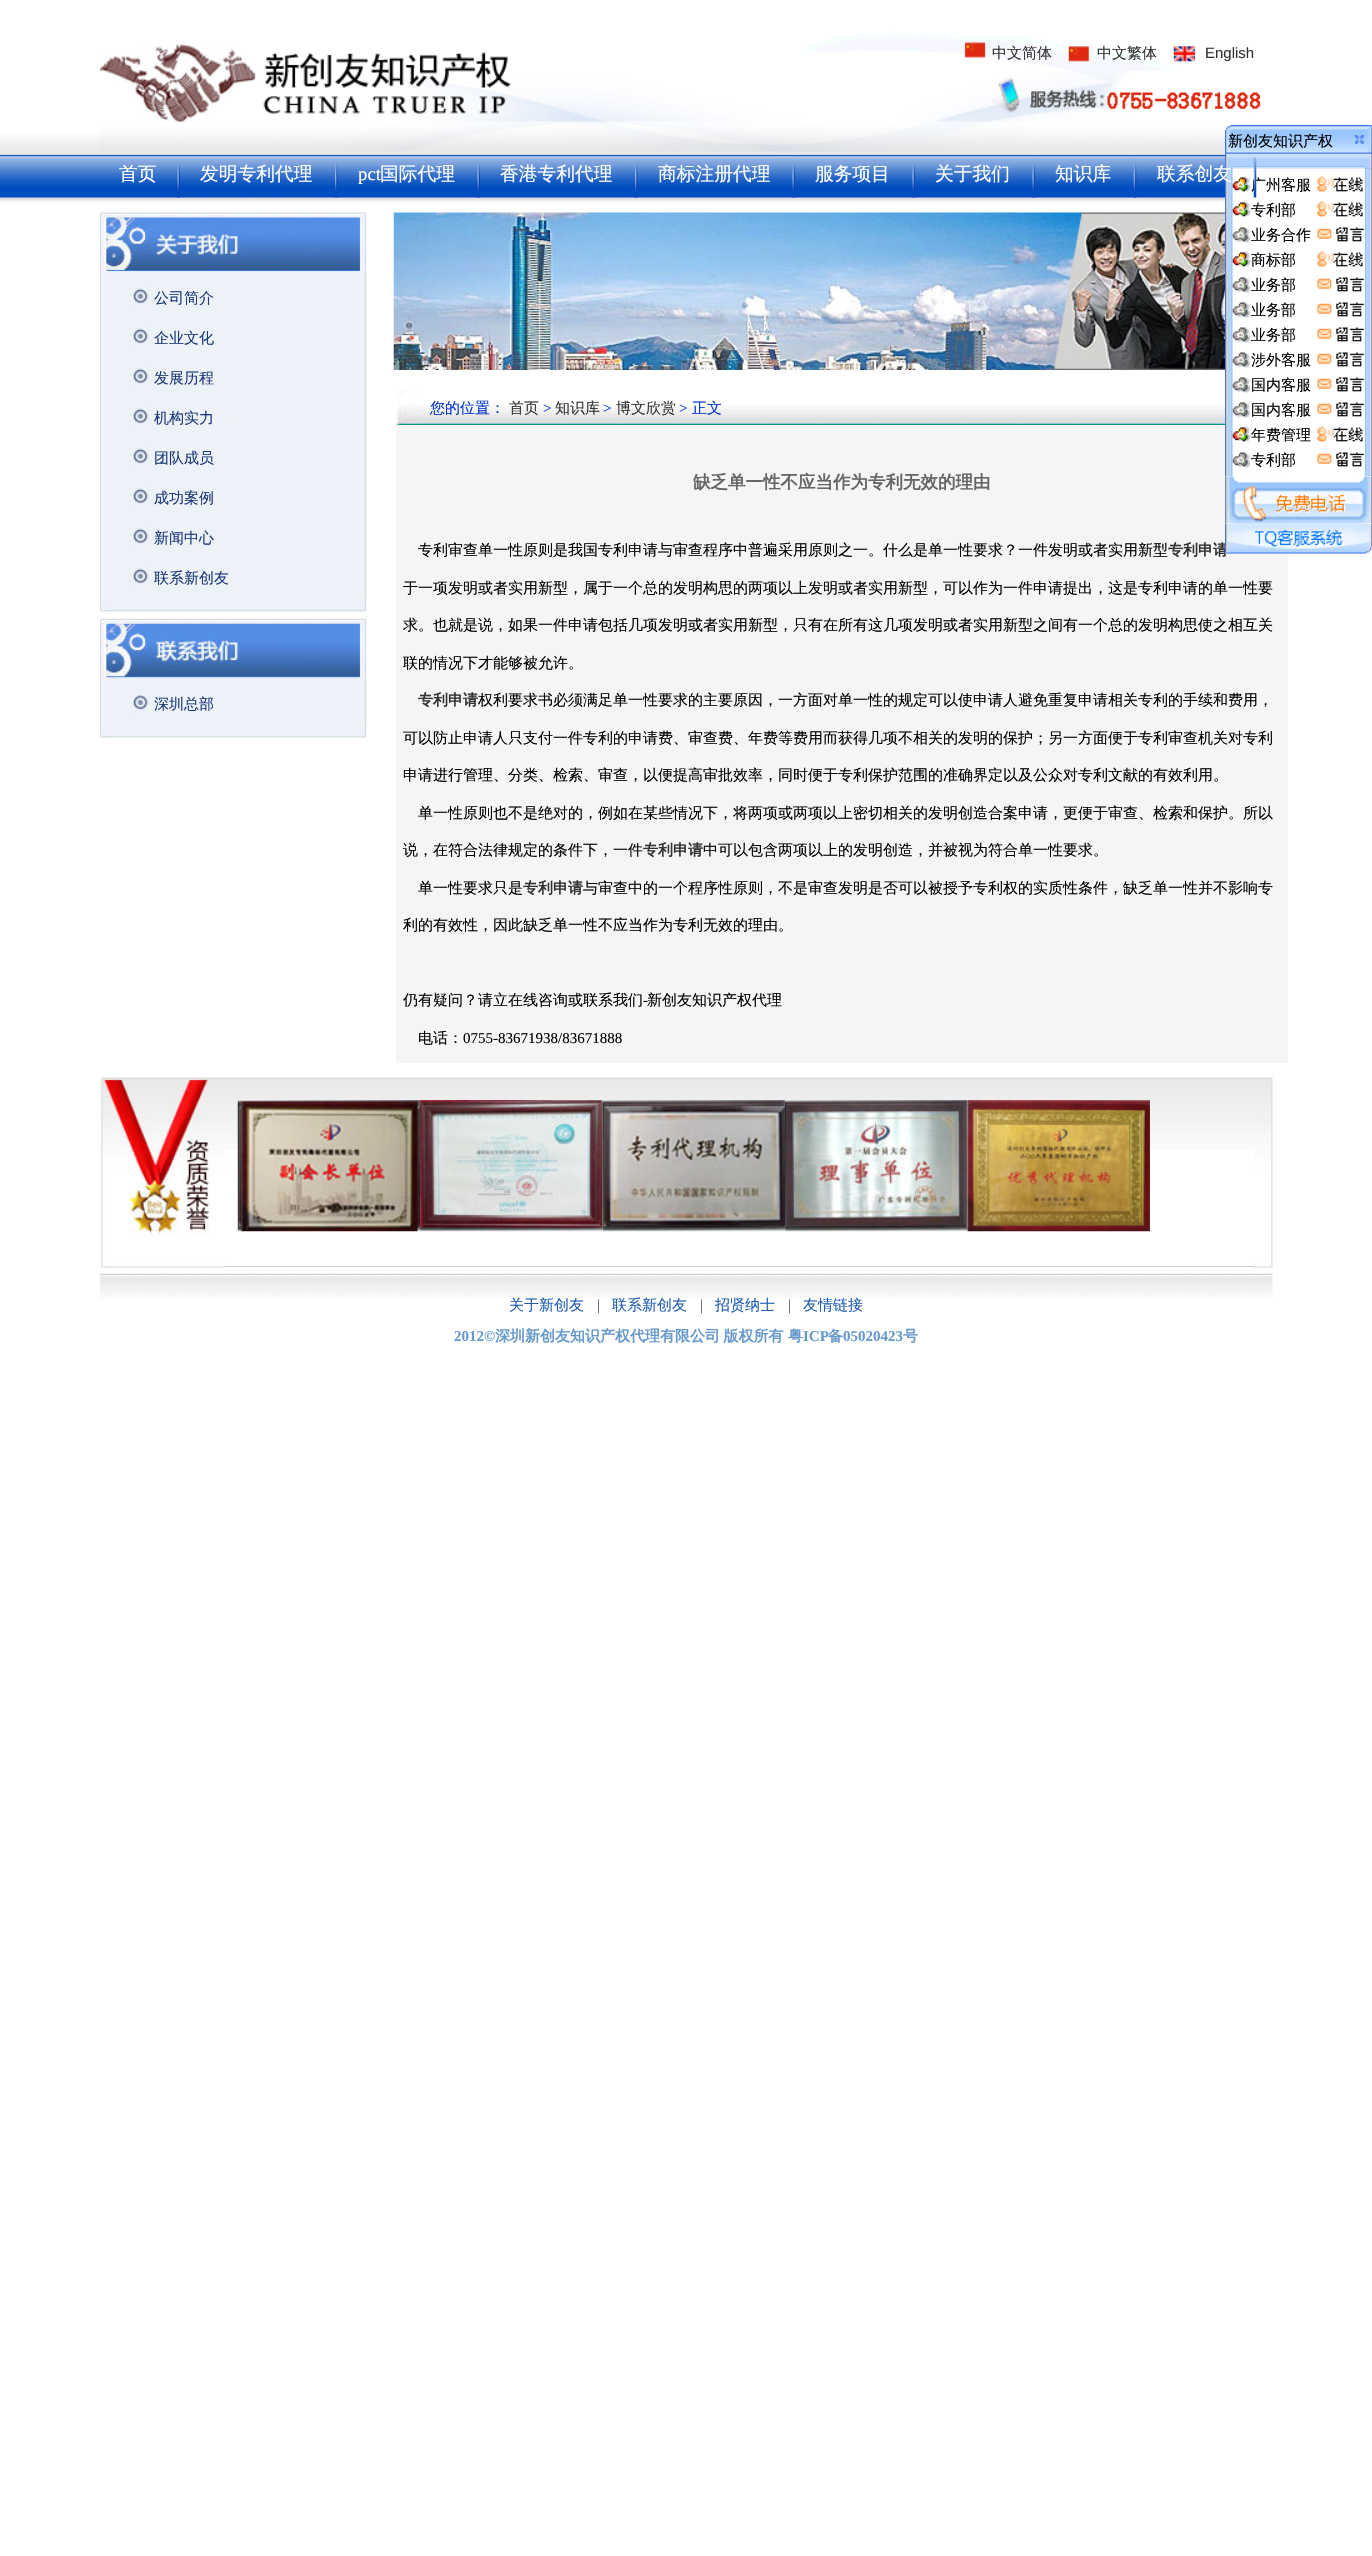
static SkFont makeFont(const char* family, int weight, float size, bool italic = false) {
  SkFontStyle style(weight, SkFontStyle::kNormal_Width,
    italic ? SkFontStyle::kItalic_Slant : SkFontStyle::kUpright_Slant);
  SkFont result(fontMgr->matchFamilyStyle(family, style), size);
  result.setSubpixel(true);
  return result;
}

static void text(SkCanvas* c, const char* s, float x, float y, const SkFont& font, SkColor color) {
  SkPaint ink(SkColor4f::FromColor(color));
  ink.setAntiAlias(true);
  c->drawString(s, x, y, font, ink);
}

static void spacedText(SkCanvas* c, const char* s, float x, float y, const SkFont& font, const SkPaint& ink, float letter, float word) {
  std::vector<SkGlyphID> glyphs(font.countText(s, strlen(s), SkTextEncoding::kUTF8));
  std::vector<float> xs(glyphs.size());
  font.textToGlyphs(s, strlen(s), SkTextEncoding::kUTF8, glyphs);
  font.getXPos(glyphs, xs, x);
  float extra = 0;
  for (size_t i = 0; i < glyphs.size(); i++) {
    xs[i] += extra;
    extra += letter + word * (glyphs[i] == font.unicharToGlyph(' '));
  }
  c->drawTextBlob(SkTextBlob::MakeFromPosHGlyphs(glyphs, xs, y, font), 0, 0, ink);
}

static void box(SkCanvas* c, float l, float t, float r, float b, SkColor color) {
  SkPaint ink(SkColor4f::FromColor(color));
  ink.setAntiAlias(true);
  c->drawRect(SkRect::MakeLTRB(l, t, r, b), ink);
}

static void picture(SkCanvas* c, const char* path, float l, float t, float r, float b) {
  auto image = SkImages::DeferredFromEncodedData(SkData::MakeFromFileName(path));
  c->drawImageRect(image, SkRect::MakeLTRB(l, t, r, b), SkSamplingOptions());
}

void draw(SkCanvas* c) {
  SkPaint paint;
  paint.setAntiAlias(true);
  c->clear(0xffffffff);
  picture(c, "img_01.png", 0, 134, 1372, 202);
  picture(c, "img_02.png", 100, 43, 547, 152);
  picture(c, "img_03.png", 802, 31, 1196, 71);
  SkFont face1 = makeFont("WenQuanYi Zen Hei", 500, 15);
  text(c, "中文简体", 992, 58, face1, 0xff333333);
  text(c, "中文繁体", 1097, 58, face1, 0xff333333);
  SkFont face2 = makeFont("Liberation Sans", 400, 15);
  text(c, "English", 1205, 58, face2, 0xff333333);
  picture(c, "img_04.png", 546, 71, 1273, 153);
  picture(c, "img_05.png", 177, 157, 180, 198);
  SkFont face3 = makeFont("WenQuanYi Zen Hei", 500, 18.75f);
  text(c, "首页", 119, 180, face3, 0xffffffff);
  picture(c, "img_06.png", 335, 157, 338, 198);
  text(c, "发明专利代理", 200, 180, face3, 0xffffffff);
  picture(c, "img_05.png", 477, 157, 480, 198);
  SkFont face4 = makeFont("Liberation Serif", 400, 18.75f);
  text(c, "pct", 358, 180, face4, 0xffffffff);
  text(c, "国际代理", 380, 180, face3, 0xffffffff);
  picture(c, "img_06.png", 635, 157, 638, 198);
  text(c, "香港专利代理", 500, 180, face3, 0xffffffff);
  picture(c, "img_05.png", 792, 157, 795, 198);
  text(c, "商标注册代理", 658, 180, face3, 0xffffffff);
  picture(c, "img_05.png", 912, 157, 915, 198);
  text(c, "服务项目", 815, 180, face3, 0xffffffff);
  picture(c, "img_05.png", 1032, 157, 1035, 198);
  text(c, "关于我们", 935, 180, face3, 0xffffffff);
  picture(c, "img_07.png", 1133, 157, 1137, 198);
  text(c, "知识库", 1055, 180, face3, 0xffffffff);
  picture(c, "img_30.png", 1225, 125, 1372, 169);
  box(c, 396, 425, 1288, 1063, 0xfff5f5f5);
  picture(c, "img_31.png", 1225, 168, 1372, 477);
  picture(c, "img_32.png", 1232, 176, 1252, 192);
  text(c, "广州客服", 1251, 190, face1, 0xff000000);
  picture(c, "img_08.png", 1253, 157, 1257, 198);
  text(c, "联系创友", 1157, 180, face3, 0xffffffff);
  picture(c, "img_09.png", 100, 212, 367, 272);
  picture(c, "img_10.png", 100, 271, 367, 598);
  picture(c, "img_11.png", 129, 287, 149, 308);
  text(c, "公司简介", 154, 303, face1, 0xff1c3978);
  picture(c, "img_12.png", 129, 327, 149, 348);
  text(c, "企业文化", 154, 343, face1, 0xff1c3978);
  picture(c, "img_12.png", 129, 367, 149, 388);
  text(c, "发展历程", 154, 383, face1, 0xff1c3978);
  picture(c, "img_12.png", 129, 407, 149, 428);
  text(c, "机构实力", 154, 423, face1, 0xff1c3978);
  picture(c, "img_12.png", 129, 447, 149, 468);
  text(c, "团队成员", 154, 463, face1, 0xff1c3978);
  picture(c, "img_12.png", 129, 487, 149, 508);
  text(c, "成功案例", 154, 503, face1, 0xff1c3978);
  picture(c, "img_12.png", 129, 527, 149, 548);
  text(c, "新闻中心", 154, 543, face1, 0xff1c3978);
  picture(c, "img_13.png", 119, 567, 332, 598);
  text(c, "联系新创友", 154, 583, face1, 0xff1c3978);
  picture(c, "img_14.png", 100, 597, 367, 613);
  picture(c, "img_15.png", 100, 618, 367, 678);
  picture(c, "img_16.png", 100, 677, 367, 724);
  picture(c, "img_17.png", 129, 694, 149, 714);
  text(c, "深圳总部", 154, 709, face1, 0xff1c3978);
  picture(c, "img_18.png", 100, 724, 367, 739);
  picture(c, "img_19.png", 393, 212, 1225, 370);
  picture(c, "img_20.png", 396, 405, 1225, 425);
  picture(c, "img_21.png", 396, 390, 418, 425);
  text(c, "您的位置：", 430, 413, face1, 0xff0033cc);
  text(c, "首页", 509, 413, face1, 0xff333333);
  SkFont face5 = makeFont("Liberation Serif", 400, 15);
  text(c, ">", 543, 413, face5, 0xff0033cc);
  text(c, "知识库", 555, 413, face1, 0xff333333);
  text(c, ">", 603, 413, face5, 0xff0033cc);
  text(c, "博文欣赏", 616, 413, face1, 0xff333333);
  text(c, ">", 679, 413, face5, 0xff0033cc);
  text(c, "正文", 692, 413, face1, 0xff0033cc);
  SkFont face6 = makeFont("WenQuanYi Zen Hei", 700, 17.5f);
  text(c, "缺乏单一性不应当作为专利无效的理由", 693, 488, face6, 0xff666666);
  text(c, "专利审查单一性原则是我国专利申请与审查程序中普遍采用原则之一。什么是单一性要求？一件发明或者实用新型", 418, 555, face1, 0xff000000);
  SkFont face7 = makeFont("WenQuanYi Zen Hei", 700, 15);
  text(c, "专利申请", 1168, 555, face7, 0xff333333);
  text(c, "于一项发明或者实用新型，属于一个总的发明构思的两项以上发明或者实用新型，可以作为一件申请提出，这是专利申请的单一性要", 403, 593, face1, 0xff000000);
  text(c, "求。也就是说，如果一件申请包括几项发明或者实用新型，只有在所有这几项发明或者实用新型之间有一个总的发明构思使之相互关", 403, 630, face1, 0xff000000);
  text(c, "联的情况下才能够被允许。", 403, 668, face1, 0xff000000);
  text(c, "专利申请", 418, 705, face7, 0xff333333);
  text(c, "权利要求书必须满足单一性要求的主要原因，一方面对单一性的规定可以使申请人避免重复申请相关专利的手续和费用，", 478, 705, face1, 0xff000000);
  text(c, "可以防止申请人只支付一件专利的申请费、审查费、年费等费用而获得几项不相关的发明的保护；另一方面便于专利审查机关对专利", 403, 743, face1, 0xff000000);
  text(c, "申请进行管理、分类、检索、审查，以便提高审批效率，同时便于专利保护范围的准确界定以及公众对专利文献的有效利用。", 403, 780, face1, 0xff000000);
  text(c, "单一性原则也不是绝对的，例如在某些情况下，将两项或两项以上密切相关的发明创造合案申请，更便于审查、检索和保护。所以", 418, 818, face1, 0xff000000);
  text(c, "说，在符合法律规定的条件下，一件", 403, 855, face1, 0xff000000);
  text(c, "专利申请", 643, 855, face7, 0xff333333);
  text(c, "中可以包含两项以上的发明创造，并被视为符合单一性要求。", 703, 855, face1, 0xff000000);
  text(c, "单一性要求只是", 418, 893, face1, 0xff000000);
  text(c, "专利申请", 523, 893, face7, 0xff333333);
  text(c, "与审查中的一个程序性原则，不是审查发明是否可以被授予专利权的实质性条件，缺乏单一性并不影响专", 583, 893, face1, 0xff000000);
  text(c, "利的有效性，因此缺乏单一性不应当作为专利无效的理由。", 403, 930, face1, 0xff000000);
  text(c, "仍有疑问？请立在线咨询或联系我们", 403, 1005, face1, 0xff000000);
  text(c, "-", 643, 1005, face5, 0xff000000);
  text(c, "新创友知识产权代理", 647, 1005, face1, 0xff000000);
  text(c, "电话：", 418, 1043, face1, 0xff000000);
  text(c, "0755-83671938/83671888", 463, 1043, face5, 0xff000000);
  box(c, 225, 1266, 1273, 1267, 0xffcccccc);
  picture(c, "img_22.png", 100, 1077, 225, 1268);
  picture(c, "img_23.png", 225, 1077, 1254, 1150);
  picture(c, "img_24.png", 237, 1100, 420, 1232);
  picture(c, "img_25.png", 420, 1100, 603, 1232);
  picture(c, "img_26.png", 602, 1100, 785, 1232);
  picture(c, "img_27.png", 785, 1100, 968, 1232);
  picture(c, "img_28.png", 967, 1100, 1150, 1232);
  picture(c, "img_29.png", 1253, 1077, 1273, 1268);
  text(c, "新创友知识产权", 1228, 146, face1, 0xff000000);
  picture(c, "img_33.png", 1317, 176, 1363, 192);
  picture(c, "img_32.png", 1232, 201, 1252, 217);
  text(c, "专利部", 1251, 215, face1, 0xff000000);
  picture(c, "img_33.png", 1317, 201, 1363, 217);
  picture(c, "img_34.png", 1232, 227, 1251, 243);
  text(c, "业务合作", 1251, 240, face1, 0xff000000);
  picture(c, "img_35.png", 1317, 227, 1364, 242);
  picture(c, "img_32.png", 1232, 251, 1252, 267);
  text(c, "商标部", 1251, 265, face1, 0xff000000);
  picture(c, "img_33.png", 1317, 251, 1363, 267);
  picture(c, "img_34.png", 1232, 277, 1251, 293);
  text(c, "业务部", 1251, 290, face1, 0xff000000);
  picture(c, "img_35.png", 1317, 277, 1364, 292);
  picture(c, "img_34.png", 1232, 302, 1251, 318);
  text(c, "业务部", 1251, 315, face1, 0xff000000);
  picture(c, "img_35.png", 1317, 302, 1364, 317);
  picture(c, "img_34.png", 1232, 327, 1251, 343);
  text(c, "业务部", 1251, 340, face1, 0xff000000);
  picture(c, "img_35.png", 1317, 327, 1364, 342);
  picture(c, "img_34.png", 1232, 352, 1251, 368);
  text(c, "涉外客服", 1251, 365, face1, 0xff000000);
  picture(c, "img_35.png", 1317, 352, 1364, 367);
  picture(c, "img_34.png", 1232, 377, 1251, 393);
  text(c, "国内客服", 1251, 390, face1, 0xff000000);
  picture(c, "img_35.png", 1317, 377, 1364, 392);
  picture(c, "img_34.png", 1232, 402, 1251, 418);
  text(c, "国内客服", 1251, 415, face1, 0xff000000);
  picture(c, "img_35.png", 1317, 402, 1364, 417);
  picture(c, "img_32.png", 1232, 426, 1252, 442);
  text(c, "年费管理", 1251, 440, face1, 0xff000000);
  picture(c, "img_33.png", 1317, 426, 1363, 442);
  picture(c, "img_34.png", 1232, 452, 1251, 468);
  text(c, "专利部", 1251, 465, face1, 0xff000000);
  picture(c, "img_35.png", 1317, 452, 1364, 467);
  picture(c, "img_36.png", 1225, 476, 1372, 524);
  picture(c, "img_37.png", 1225, 523, 1372, 554);
  picture(c, "img_38.png", 100, 1273, 1273, 1298);
  text(c, "关于新创友", 509, 1310, face1, 0xff215db3);
  text(c, "|", 597, 1310, face5, 0xff505253);
  text(c, "联系新创友", 612, 1310, face1, 0xff215db3);
  text(c, "|", 700, 1310, face5, 0xff505253);
  text(c, "招贤纳士", 715, 1310, face1, 0xff215db3);
  text(c, "|", 788, 1310, face5, 0xff505253);
  text(c, "友情链接", 803, 1310, face1, 0xff215db3);
  SkFont face8 = makeFont("Liberation Serif", 700, 15);
  text(c, "2012©", 454, 1341, face8, 0xff6699cc);
  paint.setColor(0xff6699cc);
  spacedText(c, "深圳新创友知识产权代理有限公司 版权所有", 495, 1341, face7, paint, 0, -1);
  text(c, "粤", 788, 1341, face7, 0xff6699cc);
  text(c, "ICP", 803, 1341, face8, 0xff6699cc);
  text(c, "备", 828, 1341, face7, 0xff6699cc);
  text(c, "05020423", 843, 1341, face8, 0xff6699cc);
  text(c, "号", 903, 1341, face7, 0xff6699cc);
}
